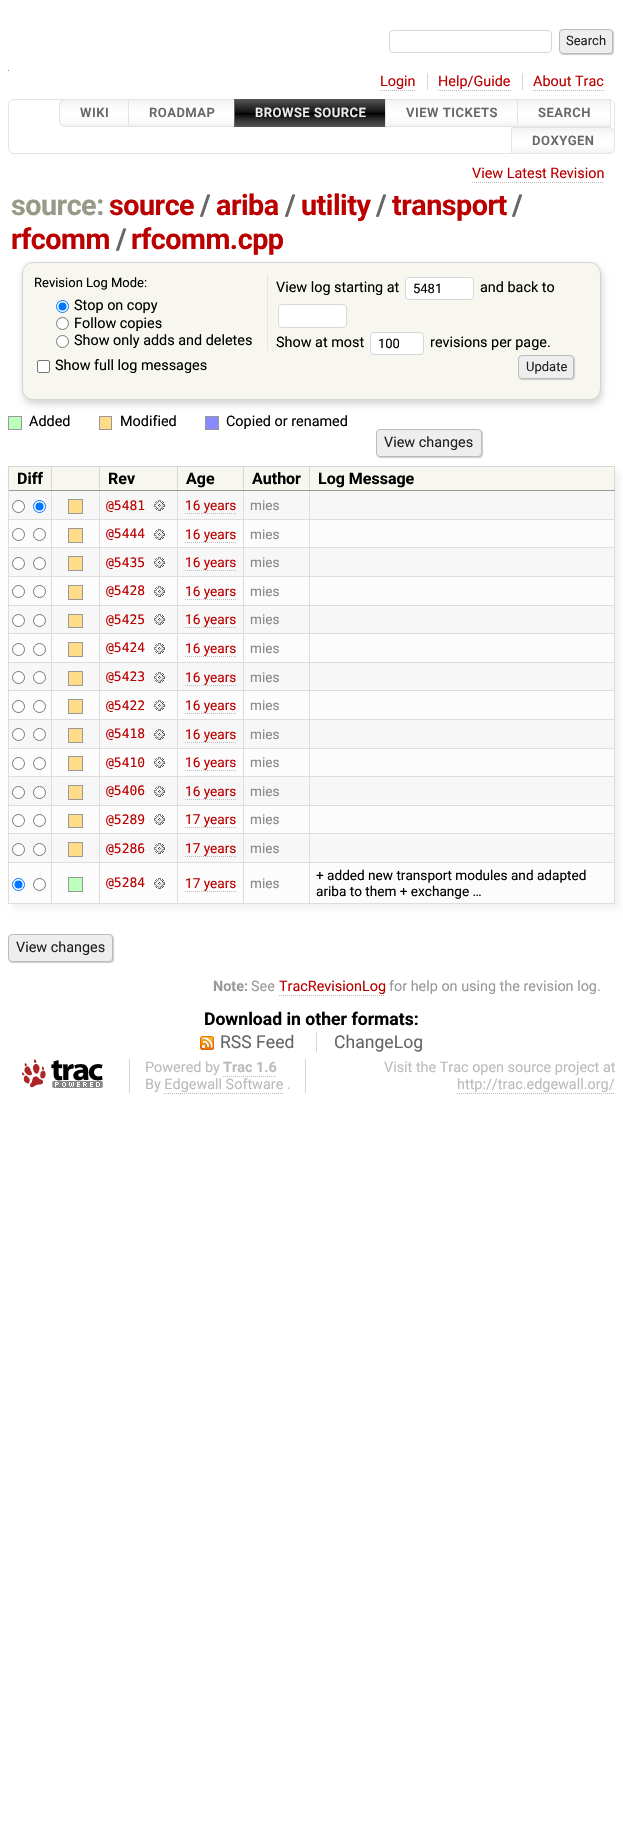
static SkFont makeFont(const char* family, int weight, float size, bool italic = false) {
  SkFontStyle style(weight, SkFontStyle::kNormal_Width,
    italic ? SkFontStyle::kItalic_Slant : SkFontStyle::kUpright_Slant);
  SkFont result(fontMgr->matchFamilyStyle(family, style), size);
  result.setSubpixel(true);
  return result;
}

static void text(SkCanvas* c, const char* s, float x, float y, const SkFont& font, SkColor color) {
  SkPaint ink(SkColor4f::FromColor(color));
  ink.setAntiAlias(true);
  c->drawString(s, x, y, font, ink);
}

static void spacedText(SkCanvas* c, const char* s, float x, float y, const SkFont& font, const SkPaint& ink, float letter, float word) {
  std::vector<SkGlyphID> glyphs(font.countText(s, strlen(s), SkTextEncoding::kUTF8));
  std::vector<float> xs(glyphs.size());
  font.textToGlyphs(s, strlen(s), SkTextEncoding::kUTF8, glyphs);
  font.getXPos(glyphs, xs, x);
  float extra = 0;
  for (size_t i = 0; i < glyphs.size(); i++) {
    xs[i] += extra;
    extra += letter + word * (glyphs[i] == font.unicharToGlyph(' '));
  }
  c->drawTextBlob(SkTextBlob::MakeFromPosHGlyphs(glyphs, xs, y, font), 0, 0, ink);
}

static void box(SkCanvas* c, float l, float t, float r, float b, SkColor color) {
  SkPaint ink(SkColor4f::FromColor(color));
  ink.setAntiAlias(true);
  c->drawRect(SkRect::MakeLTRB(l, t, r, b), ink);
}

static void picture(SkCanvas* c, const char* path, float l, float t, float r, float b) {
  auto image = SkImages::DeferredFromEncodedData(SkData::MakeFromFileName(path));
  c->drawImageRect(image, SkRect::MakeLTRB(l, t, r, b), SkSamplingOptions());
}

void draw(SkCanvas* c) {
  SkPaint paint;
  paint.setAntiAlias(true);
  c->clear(0xffffffff);
  paint.setStyle(SkPaint::kStroke_Style);
  paint.setStrokeWidth(1);
  paint.setColor(0xffd7d7d7);
  c->drawRoundRect(SkRect::MakeLTRB(389.5f, 30.5f, 551.5f, 52.5f), 3.5f, 3.5f, paint);
  paint.setStyle(SkPaint::kFill_Style);
  paint.setColor(0xffcccccc);
  paint.setMaskFilter(SkMaskFilter::MakeBlur(kNormal_SkBlurStyle, 0.5f));
  c->drawRoundRect(SkRect::MakeLTRB(560, 30, 614, 55), 4, 4, paint);
  paint.setMaskFilter(nullptr);
  paint.setColor(0xffeeeeee);
  c->drawRoundRect(SkRect::MakeLTRB(559.5f, 29.5f, 612.5f, 53.5f), 3.5f, 3.5f, paint);
  paint.setStyle(SkPaint::kStroke_Style);
  paint.setColor(0xffbbbbbb);
  c->drawRoundRect(SkRect::MakeLTRB(559.5f, 29.5f, 612.5f, 53.5f), 3.5f, 3.5f, paint);
  SkFont face1 = makeFont("Roboto", 400, 13);
  text(c, "Search", 566, 45, face1, 0xff222222);
  box(c, 8, 70, 9, 71, 0xff7a85a6);
  box(c, 427, 73, 428, 90, 0xffd7d7d7);
  SkFont face2 = makeFont("Roboto", 400, 14.4f);
  text(c, "Login", 380, 86, face2, 0xffbb0000);
  paint.setPathEffect(SkDashPathEffect::Make({{1, 1}}, 0));
  c->drawPath(SkPathBuilder().moveTo(380, 90.5f).lineTo(416, 90.5f).detach(), paint);
  paint.setPathEffect(nullptr);
  box(c, 522, 73, 523, 90, 0xffd7d7d7);
  text(c, "Help/Guide", 438, 86, face2, 0xffbb0000);
  paint.setPathEffect(SkDashPathEffect::Make({{1, 1}}, 0));
  c->drawPath(SkPathBuilder().moveTo(438, 90.5f).lineTo(511, 90.5f).detach(), paint);
  paint.setPathEffect(nullptr);
  text(c, "About Trac", 533, 86, face2, 0xffbb0000);
  paint.setPathEffect(SkDashPathEffect::Make({{1, 1}}, 0));
  c->drawPath(SkPathBuilder().moveTo(533, 90.5f).lineTo(604, 90.5f).detach(), paint);
  paint.setPathEffect(nullptr);
  paint.setColor(0xffe4e4e4);
  c->drawRoundRect(SkRect::MakeLTRB(8.5f, 99.5f, 614.5f, 153.5f), 5.5f, 5.5f, paint);
  c->save();
  c->clipPath(SkPathBuilder().moveTo(65, 99).lineTo(130, 99).lineTo(130, 127).lineTo(65, 127).cubicTo(61.5f, 127, 59, 124.5f, 59, 121).lineTo(59, 105).cubicTo(59, 101.5f, 61.5f, 99, 65, 99).close().detach(), true);
  paint.setStyle(SkPaint::kFill_Style);
  {
    const SkColor colors[] = {0xfff2f2f2, 0xfffafafa, 0xfffefefe, 0xffffffff, 0xfffafafa, 0xfff2f2f2};
    const float stops[] = {0, 0.25f, 0.49f, 0.51f, 0.85f, 1};
    const SkPoint ends[] = {{95, 100}, {95, 126}};
    paint.setShader(SkGradientShader::MakeLinear(ends, colors, stops, 6, SkTileMode::kClamp));
    paint.setAlpha(255);
  }
  c->drawRect(SkRect::MakeLTRB(59, 100, 128, 126), paint);
  c->restore();
  paint.setStyle(SkPaint::kStroke_Style);
  paint.setShader(nullptr);
  paint.setColor(0xffe4e4e4);
  c->drawPath(SkPathBuilder().moveTo(65, 99.5f).lineTo(129.5f, 99.5f).lineTo(129.5f, 126.5f).lineTo(65, 126.5f).cubicTo(62, 126.5f, 59.5f, 124, 59.5f, 121).lineTo(59.5f, 105).cubicTo(59.5f, 102, 62, 99.5f, 65, 99.5f).close().detach(), paint);
  SkFont face3 = makeFont("Roboto", 600, 13);
  paint.setStyle(SkPaint::kFill_Style);
  paint.setColor(0xff666666);
  spacedText(c, "WIKI", 80, 117, face3, paint, 0.5f, 0);
  {
    const SkColor colors[] = {0xfff2f2f2, 0xfffafafa, 0xfffefefe, 0xffffffff, 0xfffafafa, 0xfff2f2f2};
    const float stops[] = {0, 0.25f, 0.49f, 0.51f, 0.85f, 1};
    const SkPoint ends[] = {{182, 100}, {182, 126}};
    paint.setShader(SkGradientShader::MakeLinear(ends, colors, stops, 6, SkTileMode::kClamp));
    paint.setAlpha(255);
  }
  c->drawRect(SkRect::MakeLTRB(129, 100, 234, 126), paint);
  paint.setStyle(SkPaint::kStroke_Style);
  paint.setShader(nullptr);
  paint.setColor(0xffe4e4e4);
  c->drawRect(SkRect::MakeLTRB(128.5f, 99.5f, 235.5f, 126.5f), paint);
  paint.setStyle(SkPaint::kFill_Style);
  paint.setColor(0xff666666);
  spacedText(c, "ROADMAP", 149, 117, face3, paint, 0.5f, 0);
  paint.setStyle(SkPaint::kStroke_Style);
  c->drawRect(SkRect::MakeLTRB(234.5f, 99.5f, 386.5f, 126.5f), paint);
  paint.setStyle(SkPaint::kFill_Style);
  {
    const SkColor colors[] = {0xff555555, 0xff333333, 0xff111111, 0xff000000, 0xff333333, 0xff555555};
    const float stops[] = {0, 0.25f, 0.49f, 0.51f, 0.75f, 1};
    const SkPoint ends[] = {{311, 99}, {311, 127}};
    paint.setShader(SkGradientShader::MakeLinear(ends, colors, stops, 6, SkTileMode::kClamp));
    paint.setAlpha(255);
  }
  c->drawRect(SkRect::MakeLTRB(235, 99, 385, 127), paint);
  paint.setShader(nullptr);
  paint.setColor(0xffeeeeee);
  spacedText(c, "BROWSE SOURCE", 255, 117, face3, paint, 0.5f, 0);
  {
    const SkColor colors[] = {0xfff2f2f2, 0xfffafafa, 0xfffefefe, 0xffffffff, 0xfffafafa, 0xfff2f2f2};
    const float stops[] = {0, 0.25f, 0.49f, 0.51f, 0.85f, 1};
    const SkPoint ends[] = {{452, 100}, {452, 126}};
    paint.setShader(SkGradientShader::MakeLinear(ends, colors, stops, 6, SkTileMode::kClamp));
    paint.setAlpha(255);
  }
  c->drawRect(SkRect::MakeLTRB(386, 100, 517, 126), paint);
  paint.setStyle(SkPaint::kStroke_Style);
  paint.setShader(nullptr);
  paint.setColor(0xffe4e4e4);
  c->drawRect(SkRect::MakeLTRB(385.5f, 99.5f, 517.5f, 126.5f), paint);
  paint.setStyle(SkPaint::kFill_Style);
  paint.setColor(0xff666666);
  spacedText(c, "VIEW TICKETS", 406, 117, face3, paint, 0.5f, 0);
  {
    const SkColor colors[] = {0xfff2f2f2, 0xfffafafa, 0xfffefefe, 0xffffffff, 0xfffafafa, 0xfff2f2f2};
    const float stops[] = {0, 0.25f, 0.49f, 0.51f, 0.85f, 1};
    const SkPoint ends[] = {{564, 100}, {564, 126}};
    paint.setShader(SkGradientShader::MakeLinear(ends, colors, stops, 6, SkTileMode::kClamp));
    paint.setAlpha(255);
  }
  c->drawRect(SkRect::MakeLTRB(518, 100, 610, 126), paint);
  paint.setStyle(SkPaint::kStroke_Style);
  paint.setShader(nullptr);
  paint.setColor(0xffe4e4e4);
  c->drawRect(SkRect::MakeLTRB(517.5f, 99.5f, 610.5f, 126.5f), paint);
  paint.setStyle(SkPaint::kFill_Style);
  paint.setColor(0xff666666);
  spacedText(c, "SEARCH", 538, 117, face3, paint, 0.5f, 0);
  c->save();
  c->clipPath(SkPathBuilder().moveTo(511, 127).lineTo(609, 127).cubicTo(612.5f, 127, 615, 129.5f, 615, 133).lineTo(615, 148).cubicTo(615, 151.5f, 612.5f, 154, 609, 154).lineTo(511, 154).close().detach(), true);
  {
    const SkColor colors[] = {0xfff2f2f2, 0xfffafafa, 0xfffefefe, 0xffffffff, 0xfffafafa, 0xfff2f2f2};
    const float stops[] = {0, 0.25f, 0.49f, 0.51f, 0.85f, 1};
    const SkPoint ends[] = {{563, 128}, {563, 153}};
    paint.setShader(SkGradientShader::MakeLinear(ends, colors, stops, 6, SkTileMode::kClamp));
    paint.setAlpha(255);
  }
  c->drawRect(SkRect::MakeLTRB(512, 128, 615, 153), paint);
  c->restore();
  paint.setStyle(SkPaint::kStroke_Style);
  paint.setShader(nullptr);
  paint.setColor(0xffe4e4e4);
  c->drawPath(SkPathBuilder().moveTo(511.5f, 127.5f).lineTo(609, 127.5f).cubicTo(612, 127.5f, 614.5f, 130, 614.5f, 133).lineTo(614.5f, 148).cubicTo(614.5f, 151, 612, 153.5f, 609, 153.5f).lineTo(511.5f, 153.5f).close().detach(), paint);
  paint.setStyle(SkPaint::kFill_Style);
  paint.setColor(0xff666666);
  spacedText(c, "DOXYGEN", 532, 145, face3, paint, 0.5f, 0);
  text(c, "View Latest Revision", 472, 178, face2, 0xffbb0000);
  paint.setStyle(SkPaint::kStroke_Style);
  paint.setColor(0xffbbbbbb);
  paint.setPathEffect(SkDashPathEffect::Make({{1, 1}}, 0));
  c->drawPath(SkPathBuilder().moveTo(472, 182.5f).lineTo(604, 182.5f).detach(), paint);
  paint.setPathEffect(nullptr);
  SkFont face4 = makeFont("Roboto", 700, 28.75f);
  paint.setStyle(SkPaint::kFill_Style);
  paint.setColor(0xff999988);
  spacedText(c, "source:", 11, 215, face4, paint, -0.5f, 0);
  paint.setColor(0xffbb0000);
  spacedText(c, "source", 109, 215, face4, paint, -0.5f, 0);
  paint.setColor(0xff666666);
  spacedText(c, "/", 200, 215, face4, paint, -0.5f, 0);
  paint.setColor(0xffbb0000);
  spacedText(c, "ariba", 216, 215, face4, paint, -0.5f, 0);
  paint.setColor(0xff666666);
  spacedText(c, "/", 285, 215, face4, paint, -0.5f, 0);
  paint.setColor(0xffbb0000);
  spacedText(c, "utility", 301, 215, face4, paint, -0.5f, 0);
  paint.setColor(0xff666666);
  spacedText(c, "/", 376, 215, face4, paint, -0.5f, 0);
  paint.setColor(0xffbb0000);
  spacedText(c, "transport", 392, 215, face4, paint, -0.5f, 0);
  paint.setColor(0xff666666);
  spacedText(c, "/", 512, 215, face4, paint, -0.5f, 0);
  paint.setColor(0xffbb0000);
  spacedText(c, "rfcomm", 11, 249, face4, paint, -0.5f, 0);
  paint.setColor(0xff666666);
  spacedText(c, "/", 116, 249, face4, paint, -0.5f, 0);
  paint.setColor(0xffbb0000);
  spacedText(c, "rfcomm.cpp", 131, 249, face4, paint, -0.5f, 0);
  paint.setColor(0xffd4d4d4);
  paint.setMaskFilter(SkMaskFilter::MakeBlur(kNormal_SkBlurStyle, 3.5f));
  c->drawRoundRect(SkRect::MakeLTRB(23, 266, 602, 404), 11, 11, paint);
  paint.setMaskFilter(nullptr);
  paint.setColor(0xfff7f7f0);
  c->drawRoundRect(SkRect::MakeLTRB(22.5f, 262.5f, 600.5f, 399.5f), 10.5f, 10.5f, paint);
  paint.setStyle(SkPaint::kStroke_Style);
  paint.setColor(0xffd4d4d4);
  c->drawRoundRect(SkRect::MakeLTRB(22.5f, 262.5f, 600.5f, 399.5f), 10.5f, 10.5f, paint);
  paint.setColor(0xffd7d7d7);
  paint.setPathEffect(SkDashPathEffect::Make({{1, 1}}, 0));
  c->drawPath(SkPathBuilder().moveTo(267.5f, 275).lineTo(267.5f, 350).detach(), paint);
  paint.setPathEffect(nullptr);
  text(c, "Revision Log Mode:", 34, 287, face1, 0xff000000);
  paint.setStyle(SkPaint::kFill_Style);
  paint.setColor(0xffffffff);
  c->drawCircle(62.5f, 306.5f, 6, paint);
  paint.setStyle(SkPaint::kStroke_Style);
  paint.setColor(0xff0075ff);
  c->drawCircle(62.5f, 306.5f, 6, paint);
  paint.setStyle(SkPaint::kFill_Style);
  c->drawCircle(62.5f, 306.5f, 4, paint);
  text(c, "Stop on copy", 74, 310, face2, 0xff000000);
  paint.setColor(0xffffffff);
  c->drawCircle(62.5f, 323.5f, 6, paint);
  paint.setStyle(SkPaint::kStroke_Style);
  paint.setColor(0xff767676);
  c->drawCircle(62.5f, 323.5f, 6, paint);
  text(c, "Follow copies", 74, 328, face2, 0xff000000);
  paint.setStyle(SkPaint::kFill_Style);
  paint.setColor(0xffffffff);
  c->drawCircle(62.5f, 341.5f, 6, paint);
  paint.setStyle(SkPaint::kStroke_Style);
  paint.setColor(0xff767676);
  c->drawCircle(62.5f, 341.5f, 6, paint);
  text(c, "Show only adds and deletes", 74, 345, face2, 0xff000000);
  text(c, "View log starting at", 276, 292, face2, 0xff000000);
  paint.setStyle(SkPaint::kFill_Style);
  paint.setColor(0xffffffff);
  c->drawRoundRect(SkRect::MakeLTRB(405.5f, 277.5f, 473.5f, 299.5f), 3.5f, 3.5f, paint);
  paint.setStyle(SkPaint::kStroke_Style);
  paint.setColor(0xffd7d7d7);
  c->drawRoundRect(SkRect::MakeLTRB(405.5f, 277.5f, 473.5f, 299.5f), 3.5f, 3.5f, paint);
  text(c, "5481", 413, 293, face1, 0xff000000);
  text(c, "and back to", 480, 292, face2, 0xff000000);
  paint.setStyle(SkPaint::kFill_Style);
  paint.setColor(0xffffffff);
  c->drawRoundRect(SkRect::MakeLTRB(278.5f, 304.5f, 346.5f, 327.5f), 3.5f, 3.5f, paint);
  paint.setStyle(SkPaint::kStroke_Style);
  paint.setColor(0xffd7d7d7);
  c->drawRoundRect(SkRect::MakeLTRB(278.5f, 304.5f, 346.5f, 327.5f), 3.5f, 3.5f, paint);
  text(c, "Show at most", 276, 347, face2, 0xff000000);
  paint.setStyle(SkPaint::kFill_Style);
  paint.setColor(0xffffffff);
  c->drawRoundRect(SkRect::MakeLTRB(370.5f, 332.5f, 423.5f, 354.5f), 3.5f, 3.5f, paint);
  paint.setStyle(SkPaint::kStroke_Style);
  paint.setColor(0xffd7d7d7);
  c->drawRoundRect(SkRect::MakeLTRB(370.5f, 332.5f, 423.5f, 354.5f), 3.5f, 3.5f, paint);
  text(c, "100", 378, 348, face1, 0xff000000);
  text(c, "revisions per page.", 430, 347, face2, 0xff000000);
  paint.setStyle(SkPaint::kFill_Style);
  paint.setColor(0xffffffff);
  c->drawRoundRect(SkRect::MakeLTRB(37.5f, 360.5f, 49.5f, 372.5f), 1.5f, 1.5f, paint);
  paint.setStyle(SkPaint::kStroke_Style);
  paint.setColor(0xff767676);
  c->drawRoundRect(SkRect::MakeLTRB(37.5f, 360.5f, 49.5f, 372.5f), 1.5f, 1.5f, paint);
  text(c, "Show full log messages", 55, 370, face2, 0xff000000);
  paint.setStyle(SkPaint::kFill_Style);
  paint.setColor(0xffcccccc);
  paint.setMaskFilter(SkMaskFilter::MakeBlur(kNormal_SkBlurStyle, 0.5f));
  c->drawRoundRect(SkRect::MakeLTRB(519, 356, 575, 380), 4, 4, paint);
  paint.setMaskFilter(nullptr);
  paint.setColor(0xffeeeeee);
  c->drawRoundRect(SkRect::MakeLTRB(518.5f, 355.5f, 573.5f, 378.5f), 3.5f, 3.5f, paint);
  paint.setStyle(SkPaint::kStroke_Style);
  paint.setColor(0xffbbbbbb);
  c->drawRoundRect(SkRect::MakeLTRB(518.5f, 355.5f, 573.5f, 378.5f), 3.5f, 3.5f, paint);
  text(c, "Update", 526, 371, face1, 0xff222222);
  paint.setStyle(SkPaint::kFill_Style);
  paint.setColor(0xffbbffbb);
  c->drawRect(SkRect::MakeLTRB(8.5f, 416.5f, 21.5f, 429.5f), paint);
  paint.setStyle(SkPaint::kStroke_Style);
  paint.setColor(0xff999999);
  c->drawRect(SkRect::MakeLTRB(8.5f, 416.5f, 21.5f, 429.5f), paint);
  text(c, "Added", 29, 426, face2, 0xff000000);
  paint.setStyle(SkPaint::kFill_Style);
  paint.setColor(0xffffdd88);
  c->drawRect(SkRect::MakeLTRB(99.5f, 416.5f, 111.5f, 429.5f), paint);
  paint.setStyle(SkPaint::kStroke_Style);
  paint.setColor(0xff999999);
  c->drawRect(SkRect::MakeLTRB(99.5f, 416.5f, 111.5f, 429.5f), paint);
  text(c, "Modified", 120, 426, face2, 0xff000000);
  paint.setStyle(SkPaint::kFill_Style);
  paint.setColor(0xff8888ff);
  c->drawRect(SkRect::MakeLTRB(205.5f, 416.5f, 218.5f, 429.5f), paint);
  paint.setStyle(SkPaint::kStroke_Style);
  paint.setColor(0xff999999);
  c->drawRect(SkRect::MakeLTRB(205.5f, 416.5f, 218.5f, 429.5f), paint);
  text(c, "Copied or renamed", 226, 426, face2, 0xff000000);
  paint.setStyle(SkPaint::kFill_Style);
  paint.setColor(0xffcccccc);
  paint.setMaskFilter(SkMaskFilter::MakeBlur(kNormal_SkBlurStyle, 0.5f));
  c->drawRoundRect(SkRect::MakeLTRB(377, 430, 483, 458), 4, 4, paint);
  paint.setMaskFilter(nullptr);
  paint.setColor(0xffeeeeee);
  c->drawRoundRect(SkRect::MakeLTRB(376.5f, 429.5f, 481.5f, 456.5f), 3.5f, 3.5f, paint);
  paint.setStyle(SkPaint::kStroke_Style);
  paint.setColor(0xffbbbbbb);
  c->drawRoundRect(SkRect::MakeLTRB(376.5f, 429.5f, 481.5f, 456.5f), 3.5f, 3.5f, paint);
  text(c, "View changes", 384, 447, face2, 0xff222222);
  paint.setStyle(SkPaint::kFill_Style);
  paint.setColor(0xfff2f2f2);
  paint.setMaskFilter(SkMaskFilter::MakeBlur(kNormal_SkBlurStyle, 3));
  c->drawRect(SkRect::MakeLTRB(13, 471, 620, 909), paint);
  paint.setMaskFilter(nullptr);
  box(c, 9, 467, 614, 490, 0xfff7f7f0);
  box(c, 309, 466, 615, 467, 0xffd7d7d7);
  box(c, 8, 519, 615, 520, 0xffdddddd);
  box(c, 8, 547, 615, 548, 0xffdddddd);
  box(c, 8, 576, 615, 577, 0xffdddddd);
  box(c, 8, 605, 615, 606, 0xffdddddd);
  box(c, 8, 633, 615, 634, 0xffdddddd);
  box(c, 8, 662, 615, 663, 0xffdddddd);
  box(c, 8, 690, 615, 691, 0xffdddddd);
  box(c, 8, 719, 615, 720, 0xffdddddd);
  box(c, 8, 748, 615, 749, 0xffdddddd);
  box(c, 8, 776, 615, 777, 0xffdddddd);
  box(c, 8, 805, 615, 806, 0xffdddddd);
  box(c, 8, 833, 615, 834, 0xffdddddd);
  box(c, 8, 862, 615, 863, 0xffdddddd);
  box(c, 614, 490, 615, 904, 0xffdddddd);
  box(c, 614, 466, 615, 491, 0xffd7d7d7);
  box(c, 9, 491, 614, 519, 0xfff7f7f7);
  box(c, 12, 520, 614, 547, 0xfffcfcfc);
  box(c, 9, 548, 614, 576, 0xfff7f7f7);
  box(c, 12, 577, 614, 605, 0xfffcfcfc);
  box(c, 9, 606, 614, 633, 0xfff7f7f7);
  box(c, 12, 634, 614, 662, 0xfffcfcfc);
  box(c, 9, 663, 614, 690, 0xfff7f7f7);
  box(c, 12, 691, 614, 719, 0xfffcfcfc);
  box(c, 9, 720, 614, 748, 0xfff7f7f7);
  box(c, 12, 749, 614, 776, 0xfffcfcfc);
  box(c, 9, 777, 614, 805, 0xfff7f7f7);
  box(c, 12, 806, 614, 833, 0xfffcfcfc);
  box(c, 9, 834, 614, 862, 0xfff7f7f7);
  box(c, 12, 863, 614, 903, 0xfffcfcfc);
  box(c, 309, 903, 615, 904, 0xffdddddd);
  box(c, 309, 490, 310, 904, 0xffdddddd);
  box(c, 309, 490, 615, 491, 0xff999999);
  box(c, 309, 466, 310, 491, 0xffd7d7d7);
  box(c, 243, 466, 310, 467, 0xffd7d7d7);
  box(c, 243, 903, 310, 904, 0xffdddddd);
  box(c, 243, 490, 244, 904, 0xffdddddd);
  box(c, 243, 490, 310, 491, 0xff999999);
  box(c, 243, 466, 244, 491, 0xffd7d7d7);
  box(c, 177, 466, 244, 467, 0xffd7d7d7);
  box(c, 177, 903, 244, 904, 0xffdddddd);
  box(c, 177, 490, 178, 904, 0xffdddddd);
  box(c, 177, 490, 244, 491, 0xff999999);
  box(c, 177, 466, 178, 491, 0xffd7d7d7);
  box(c, 99, 466, 178, 467, 0xffd7d7d7);
  box(c, 99, 903, 178, 904, 0xffdddddd);
  box(c, 99, 490, 100, 904, 0xffdddddd);
  box(c, 99, 490, 178, 491, 0xff999999);
  box(c, 99, 466, 100, 491, 0xffd7d7d7);
  box(c, 51, 466, 100, 467, 0xffd7d7d7);
  box(c, 51, 903, 100, 904, 0xffdddddd);
  box(c, 51, 490, 52, 904, 0xffdddddd);
  box(c, 51, 490, 100, 491, 0xff999999);
  box(c, 51, 466, 52, 491, 0xffd7d7d7);
  box(c, 8, 466, 52, 467, 0xffd7d7d7);
  box(c, 8, 903, 52, 904, 0xffdddddd);
  box(c, 8, 490, 9, 904, 0xffdddddd);
  box(c, 8, 490, 52, 491, 0xff999999);
  box(c, 8, 466, 9, 491, 0xffd7d7d7);
  SkFont face5 = makeFont("Roboto", 700, 16);
  text(c, "Diff", 17, 484, face5, 0xff000000);
  text(c, "Rev", 108, 484, face5, 0xff000000);
  text(c, "Age", 186, 484, face5, 0xff000000);
  text(c, "Author", 252, 484, face5, 0xff000000);
  text(c, "Log Message", 318, 484, face5, 0xff000000);
  paint.setColor(0xffffffff);
  c->drawCircle(18.5f, 506.5f, 6, paint);
  paint.setStyle(SkPaint::kStroke_Style);
  paint.setColor(0xff767676);
  c->drawCircle(18.5f, 506.5f, 6, paint);
  paint.setStyle(SkPaint::kFill_Style);
  paint.setColor(0xffffffff);
  c->drawCircle(39.5f, 506.5f, 6, paint);
  paint.setStyle(SkPaint::kStroke_Style);
  paint.setColor(0xff0075ff);
  c->drawCircle(39.5f, 506.5f, 6, paint);
  paint.setStyle(SkPaint::kFill_Style);
  c->drawCircle(39.5f, 506.5f, 4, paint);
  paint.setColor(0xffffdd88);
  c->drawRect(SkRect::MakeLTRB(68.5f, 499.5f, 82.5f, 513.5f), paint);
  paint.setStyle(SkPaint::kStroke_Style);
  paint.setColor(0xff999999);
  c->drawRect(SkRect::MakeLTRB(68.5f, 499.5f, 82.5f, 513.5f), paint);
  SkFont face6 = makeFont("DejaVu Sans Mono", 400, 13);
  text(c, "@5481", 106, 510, face6, 0xffbb0000);
  picture(c, "img_01.png", 154, 500, 165, 511);
  SkFont face7 = makeFont("Roboto", 400, 13.6f);
  text(c, "16 years", 185, 510, face7, 0xffbb0000);
  paint.setColor(0xffbbbbbb);
  paint.setPathEffect(SkDashPathEffect::Make({{1, 1}}, 0));
  c->drawPath(SkPathBuilder().moveTo(185, 513.5f).lineTo(236, 513.5f).detach(), paint);
  paint.setPathEffect(nullptr);
  text(c, "mies", 250, 510, face7, 0xff888888);
  paint.setStyle(SkPaint::kFill_Style);
  paint.setColor(0xffffffff);
  c->drawCircle(18.5f, 534.5f, 6, paint);
  paint.setStyle(SkPaint::kStroke_Style);
  paint.setColor(0xff767676);
  c->drawCircle(18.5f, 534.5f, 6, paint);
  paint.setStyle(SkPaint::kFill_Style);
  paint.setColor(0xffffffff);
  c->drawCircle(39.5f, 534.5f, 6, paint);
  paint.setStyle(SkPaint::kStroke_Style);
  paint.setColor(0xff767676);
  c->drawCircle(39.5f, 534.5f, 6, paint);
  paint.setStyle(SkPaint::kFill_Style);
  paint.setColor(0xffffdd88);
  c->drawRect(SkRect::MakeLTRB(68.5f, 528.5f, 82.5f, 542.5f), paint);
  paint.setStyle(SkPaint::kStroke_Style);
  paint.setColor(0xff999999);
  c->drawRect(SkRect::MakeLTRB(68.5f, 528.5f, 82.5f, 542.5f), paint);
  text(c, "@5444", 106, 538, face6, 0xffbb0000);
  picture(c, "img_02.png", 154, 529, 165, 540);
  text(c, "16 years", 185, 539, face7, 0xffbb0000);
  paint.setColor(0xffbbbbbb);
  paint.setPathEffect(SkDashPathEffect::Make({{1, 1}}, 0));
  c->drawPath(SkPathBuilder().moveTo(185, 542.5f).lineTo(236, 542.5f).detach(), paint);
  paint.setPathEffect(nullptr);
  text(c, "mies", 250, 539, face7, 0xff888888);
  paint.setStyle(SkPaint::kFill_Style);
  paint.setColor(0xffffffff);
  c->drawCircle(18.5f, 563.5f, 6, paint);
  paint.setStyle(SkPaint::kStroke_Style);
  paint.setColor(0xff767676);
  c->drawCircle(18.5f, 563.5f, 6, paint);
  paint.setStyle(SkPaint::kFill_Style);
  paint.setColor(0xffffffff);
  c->drawCircle(39.5f, 563.5f, 6, paint);
  paint.setStyle(SkPaint::kStroke_Style);
  paint.setColor(0xff767676);
  c->drawCircle(39.5f, 563.5f, 6, paint);
  paint.setStyle(SkPaint::kFill_Style);
  paint.setColor(0xffffdd88);
  c->drawRect(SkRect::MakeLTRB(68.5f, 556.5f, 82.5f, 570.5f), paint);
  paint.setStyle(SkPaint::kStroke_Style);
  paint.setColor(0xff999999);
  c->drawRect(SkRect::MakeLTRB(68.5f, 556.5f, 82.5f, 570.5f), paint);
  text(c, "@5435", 106, 567, face6, 0xffbb0000);
  picture(c, "img_01.png", 154, 557, 165, 568);
  text(c, "16 years", 185, 567, face7, 0xffbb0000);
  paint.setColor(0xffbbbbbb);
  paint.setPathEffect(SkDashPathEffect::Make({{1, 1}}, 0));
  c->drawPath(SkPathBuilder().moveTo(185, 570.5f).lineTo(236, 570.5f).detach(), paint);
  paint.setPathEffect(nullptr);
  text(c, "mies", 250, 567, face7, 0xff888888);
  paint.setStyle(SkPaint::kFill_Style);
  paint.setColor(0xffffffff);
  c->drawCircle(18.5f, 591.5f, 6, paint);
  paint.setStyle(SkPaint::kStroke_Style);
  paint.setColor(0xff767676);
  c->drawCircle(18.5f, 591.5f, 6, paint);
  paint.setStyle(SkPaint::kFill_Style);
  paint.setColor(0xffffffff);
  c->drawCircle(39.5f, 591.5f, 6, paint);
  paint.setStyle(SkPaint::kStroke_Style);
  paint.setColor(0xff767676);
  c->drawCircle(39.5f, 591.5f, 6, paint);
  paint.setStyle(SkPaint::kFill_Style);
  paint.setColor(0xffffdd88);
  c->drawRect(SkRect::MakeLTRB(68.5f, 585.5f, 82.5f, 599.5f), paint);
  paint.setStyle(SkPaint::kStroke_Style);
  paint.setColor(0xff999999);
  c->drawRect(SkRect::MakeLTRB(68.5f, 585.5f, 82.5f, 599.5f), paint);
  text(c, "@5428", 106, 595, face6, 0xffbb0000);
  picture(c, "img_02.png", 154, 586, 165, 597);
  text(c, "16 years", 185, 596, face7, 0xffbb0000);
  paint.setColor(0xffbbbbbb);
  paint.setPathEffect(SkDashPathEffect::Make({{1, 1}}, 0));
  c->drawPath(SkPathBuilder().moveTo(185, 599.5f).lineTo(236, 599.5f).detach(), paint);
  paint.setPathEffect(nullptr);
  text(c, "mies", 250, 596, face7, 0xff888888);
  paint.setStyle(SkPaint::kFill_Style);
  paint.setColor(0xffffffff);
  c->drawCircle(18.5f, 620.5f, 6, paint);
  paint.setStyle(SkPaint::kStroke_Style);
  paint.setColor(0xff767676);
  c->drawCircle(18.5f, 620.5f, 6, paint);
  paint.setStyle(SkPaint::kFill_Style);
  paint.setColor(0xffffffff);
  c->drawCircle(39.5f, 620.5f, 6, paint);
  paint.setStyle(SkPaint::kStroke_Style);
  paint.setColor(0xff767676);
  c->drawCircle(39.5f, 620.5f, 6, paint);
  paint.setStyle(SkPaint::kFill_Style);
  paint.setColor(0xffffdd88);
  c->drawRect(SkRect::MakeLTRB(68.5f, 614.5f, 82.5f, 627.5f), paint);
  paint.setStyle(SkPaint::kStroke_Style);
  paint.setColor(0xff999999);
  c->drawRect(SkRect::MakeLTRB(68.5f, 614.5f, 82.5f, 627.5f), paint);
  text(c, "@5425", 106, 624, face6, 0xffbb0000);
  picture(c, "img_01.png", 154, 614, 165, 625);
  text(c, "16 years", 185, 624, face7, 0xffbb0000);
  paint.setColor(0xffbbbbbb);
  paint.setPathEffect(SkDashPathEffect::Make({{1, 1}}, 0));
  c->drawPath(SkPathBuilder().moveTo(185, 627.5f).lineTo(236, 627.5f).detach(), paint);
  paint.setPathEffect(nullptr);
  text(c, "mies", 250, 624, face7, 0xff888888);
  paint.setStyle(SkPaint::kFill_Style);
  paint.setColor(0xffffffff);
  c->drawCircle(18.5f, 649.5f, 6, paint);
  paint.setStyle(SkPaint::kStroke_Style);
  paint.setColor(0xff767676);
  c->drawCircle(18.5f, 649.5f, 6, paint);
  paint.setStyle(SkPaint::kFill_Style);
  paint.setColor(0xffffffff);
  c->drawCircle(39.5f, 649.5f, 6, paint);
  paint.setStyle(SkPaint::kStroke_Style);
  paint.setColor(0xff767676);
  c->drawCircle(39.5f, 649.5f, 6, paint);
  paint.setStyle(SkPaint::kFill_Style);
  paint.setColor(0xffffdd88);
  c->drawRect(SkRect::MakeLTRB(68.5f, 642.5f, 82.5f, 656.5f), paint);
  paint.setStyle(SkPaint::kStroke_Style);
  paint.setColor(0xff999999);
  c->drawRect(SkRect::MakeLTRB(68.5f, 642.5f, 82.5f, 656.5f), paint);
  text(c, "@5424", 106, 652, face6, 0xffbb0000);
  picture(c, "img_02.png", 154, 643, 165, 654);
  text(c, "16 years", 185, 653, face7, 0xffbb0000);
  paint.setColor(0xffbbbbbb);
  paint.setPathEffect(SkDashPathEffect::Make({{1, 1}}, 0));
  c->drawPath(SkPathBuilder().moveTo(185, 656.5f).lineTo(236, 656.5f).detach(), paint);
  paint.setPathEffect(nullptr);
  text(c, "mies", 250, 653, face7, 0xff888888);
  paint.setStyle(SkPaint::kFill_Style);
  paint.setColor(0xffffffff);
  c->drawCircle(18.5f, 677.5f, 6, paint);
  paint.setStyle(SkPaint::kStroke_Style);
  paint.setColor(0xff767676);
  c->drawCircle(18.5f, 677.5f, 6, paint);
  paint.setStyle(SkPaint::kFill_Style);
  paint.setColor(0xffffffff);
  c->drawCircle(39.5f, 677.5f, 6, paint);
  paint.setStyle(SkPaint::kStroke_Style);
  paint.setColor(0xff767676);
  c->drawCircle(39.5f, 677.5f, 6, paint);
  paint.setStyle(SkPaint::kFill_Style);
  paint.setColor(0xffffdd88);
  c->drawRect(SkRect::MakeLTRB(68.5f, 671.5f, 82.5f, 685.5f), paint);
  paint.setStyle(SkPaint::kStroke_Style);
  paint.setColor(0xff999999);
  c->drawRect(SkRect::MakeLTRB(68.5f, 671.5f, 82.5f, 685.5f), paint);
  text(c, "@5423", 106, 681, face6, 0xffbb0000);
  picture(c, "img_01.png", 154, 672, 165, 683);
  text(c, "16 years", 185, 682, face7, 0xffbb0000);
  paint.setColor(0xffbbbbbb);
  paint.setPathEffect(SkDashPathEffect::Make({{1, 1}}, 0));
  c->drawPath(SkPathBuilder().moveTo(185, 685.5f).lineTo(236, 685.5f).detach(), paint);
  paint.setPathEffect(nullptr);
  text(c, "mies", 250, 682, face7, 0xff888888);
  paint.setStyle(SkPaint::kFill_Style);
  paint.setColor(0xffffffff);
  c->drawCircle(18.5f, 706.5f, 6, paint);
  paint.setStyle(SkPaint::kStroke_Style);
  paint.setColor(0xff767676);
  c->drawCircle(18.5f, 706.5f, 6, paint);
  paint.setStyle(SkPaint::kFill_Style);
  paint.setColor(0xffffffff);
  c->drawCircle(39.5f, 706.5f, 6, paint);
  paint.setStyle(SkPaint::kStroke_Style);
  paint.setColor(0xff767676);
  c->drawCircle(39.5f, 706.5f, 6, paint);
  paint.setStyle(SkPaint::kFill_Style);
  paint.setColor(0xffffdd88);
  c->drawRect(SkRect::MakeLTRB(68.5f, 699.5f, 82.5f, 713.5f), paint);
  paint.setStyle(SkPaint::kStroke_Style);
  paint.setColor(0xff999999);
  c->drawRect(SkRect::MakeLTRB(68.5f, 699.5f, 82.5f, 713.5f), paint);
  text(c, "@5422", 106, 710, face6, 0xffbb0000);
  picture(c, "img_02.png", 154, 700, 165, 711);
  text(c, "16 years", 185, 710, face7, 0xffbb0000);
  paint.setColor(0xffbbbbbb);
  paint.setPathEffect(SkDashPathEffect::Make({{1, 1}}, 0));
  c->drawPath(SkPathBuilder().moveTo(185, 713.5f).lineTo(236, 713.5f).detach(), paint);
  paint.setPathEffect(nullptr);
  text(c, "mies", 250, 710, face7, 0xff888888);
  paint.setStyle(SkPaint::kFill_Style);
  paint.setColor(0xffffffff);
  c->drawCircle(18.5f, 734.5f, 6, paint);
  paint.setStyle(SkPaint::kStroke_Style);
  paint.setColor(0xff767676);
  c->drawCircle(18.5f, 734.5f, 6, paint);
  paint.setStyle(SkPaint::kFill_Style);
  paint.setColor(0xffffffff);
  c->drawCircle(39.5f, 734.5f, 6, paint);
  paint.setStyle(SkPaint::kStroke_Style);
  paint.setColor(0xff767676);
  c->drawCircle(39.5f, 734.5f, 6, paint);
  paint.setStyle(SkPaint::kFill_Style);
  paint.setColor(0xffffdd88);
  c->drawRect(SkRect::MakeLTRB(68.5f, 728.5f, 82.5f, 742.5f), paint);
  paint.setStyle(SkPaint::kStroke_Style);
  paint.setColor(0xff999999);
  c->drawRect(SkRect::MakeLTRB(68.5f, 728.5f, 82.5f, 742.5f), paint);
  text(c, "@5418", 106, 738, face6, 0xffbb0000);
  picture(c, "img_01.png", 154, 729, 165, 740);
  text(c, "16 years", 185, 739, face7, 0xffbb0000);
  paint.setColor(0xffbbbbbb);
  paint.setPathEffect(SkDashPathEffect::Make({{1, 1}}, 0));
  c->drawPath(SkPathBuilder().moveTo(185, 742.5f).lineTo(236, 742.5f).detach(), paint);
  paint.setPathEffect(nullptr);
  text(c, "mies", 250, 739, face7, 0xff888888);
  paint.setStyle(SkPaint::kFill_Style);
  paint.setColor(0xffffffff);
  c->drawCircle(18.5f, 763.5f, 6, paint);
  paint.setStyle(SkPaint::kStroke_Style);
  paint.setColor(0xff767676);
  c->drawCircle(18.5f, 763.5f, 6, paint);
  paint.setStyle(SkPaint::kFill_Style);
  paint.setColor(0xffffffff);
  c->drawCircle(39.5f, 763.5f, 6, paint);
  paint.setStyle(SkPaint::kStroke_Style);
  paint.setColor(0xff767676);
  c->drawCircle(39.5f, 763.5f, 6, paint);
  paint.setStyle(SkPaint::kFill_Style);
  paint.setColor(0xffffdd88);
  c->drawRect(SkRect::MakeLTRB(68.5f, 756.5f, 82.5f, 770.5f), paint);
  paint.setStyle(SkPaint::kStroke_Style);
  paint.setColor(0xff999999);
  c->drawRect(SkRect::MakeLTRB(68.5f, 756.5f, 82.5f, 770.5f), paint);
  text(c, "@5410", 106, 767, face6, 0xffbb0000);
  picture(c, "img_02.png", 154, 757, 165, 768);
  text(c, "16 years", 185, 767, face7, 0xffbb0000);
  paint.setColor(0xffbbbbbb);
  paint.setPathEffect(SkDashPathEffect::Make({{1, 1}}, 0));
  c->drawPath(SkPathBuilder().moveTo(185, 770.5f).lineTo(236, 770.5f).detach(), paint);
  paint.setPathEffect(nullptr);
  text(c, "mies", 250, 767, face7, 0xff888888);
  paint.setStyle(SkPaint::kFill_Style);
  paint.setColor(0xffffffff);
  c->drawCircle(18.5f, 792.5f, 6, paint);
  paint.setStyle(SkPaint::kStroke_Style);
  paint.setColor(0xff767676);
  c->drawCircle(18.5f, 792.5f, 6, paint);
  paint.setStyle(SkPaint::kFill_Style);
  paint.setColor(0xffffffff);
  c->drawCircle(39.5f, 792.5f, 6, paint);
  paint.setStyle(SkPaint::kStroke_Style);
  paint.setColor(0xff767676);
  c->drawCircle(39.5f, 792.5f, 6, paint);
  paint.setStyle(SkPaint::kFill_Style);
  paint.setColor(0xffffdd88);
  c->drawRect(SkRect::MakeLTRB(68.5f, 785.5f, 82.5f, 799.5f), paint);
  paint.setStyle(SkPaint::kStroke_Style);
  paint.setColor(0xff999999);
  c->drawRect(SkRect::MakeLTRB(68.5f, 785.5f, 82.5f, 799.5f), paint);
  text(c, "@5406", 106, 795, face6, 0xffbb0000);
  picture(c, "img_01.png", 154, 786, 165, 797);
  text(c, "16 years", 185, 796, face7, 0xffbb0000);
  paint.setColor(0xffbbbbbb);
  paint.setPathEffect(SkDashPathEffect::Make({{1, 1}}, 0));
  c->drawPath(SkPathBuilder().moveTo(185, 799.5f).lineTo(236, 799.5f).detach(), paint);
  paint.setPathEffect(nullptr);
  text(c, "mies", 250, 796, face7, 0xff888888);
  paint.setStyle(SkPaint::kFill_Style);
  paint.setColor(0xffffffff);
  c->drawCircle(18.5f, 820.5f, 6, paint);
  paint.setStyle(SkPaint::kStroke_Style);
  paint.setColor(0xff767676);
  c->drawCircle(18.5f, 820.5f, 6, paint);
  paint.setStyle(SkPaint::kFill_Style);
  paint.setColor(0xffffffff);
  c->drawCircle(39.5f, 820.5f, 6, paint);
  paint.setStyle(SkPaint::kStroke_Style);
  paint.setColor(0xff767676);
  c->drawCircle(39.5f, 820.5f, 6, paint);
  paint.setStyle(SkPaint::kFill_Style);
  paint.setColor(0xffffdd88);
  c->drawRect(SkRect::MakeLTRB(68.5f, 814.5f, 82.5f, 827.5f), paint);
  paint.setStyle(SkPaint::kStroke_Style);
  paint.setColor(0xff999999);
  c->drawRect(SkRect::MakeLTRB(68.5f, 814.5f, 82.5f, 827.5f), paint);
  text(c, "@5289", 106, 824, face6, 0xffbb0000);
  picture(c, "img_02.png", 154, 814, 165, 825);
  text(c, "17 years", 185, 824, face7, 0xffbb0000);
  paint.setColor(0xffbbbbbb);
  paint.setPathEffect(SkDashPathEffect::Make({{1, 1}}, 0));
  c->drawPath(SkPathBuilder().moveTo(185, 827.5f).lineTo(236, 827.5f).detach(), paint);
  paint.setPathEffect(nullptr);
  text(c, "mies", 250, 824, face7, 0xff888888);
  paint.setStyle(SkPaint::kFill_Style);
  paint.setColor(0xffffffff);
  c->drawCircle(18.5f, 849.5f, 6, paint);
  paint.setStyle(SkPaint::kStroke_Style);
  paint.setColor(0xff767676);
  c->drawCircle(18.5f, 849.5f, 6, paint);
  paint.setStyle(SkPaint::kFill_Style);
  paint.setColor(0xffffffff);
  c->drawCircle(39.5f, 849.5f, 6, paint);
  paint.setStyle(SkPaint::kStroke_Style);
  paint.setColor(0xff767676);
  c->drawCircle(39.5f, 849.5f, 6, paint);
  paint.setStyle(SkPaint::kFill_Style);
  paint.setColor(0xffffdd88);
  c->drawRect(SkRect::MakeLTRB(68.5f, 842.5f, 82.5f, 856.5f), paint);
  paint.setStyle(SkPaint::kStroke_Style);
  paint.setColor(0xff999999);
  c->drawRect(SkRect::MakeLTRB(68.5f, 842.5f, 82.5f, 856.5f), paint);
  text(c, "@5286", 106, 853, face6, 0xffbb0000);
  picture(c, "img_01.png", 154, 843, 165, 854);
  text(c, "17 years", 185, 853, face7, 0xffbb0000);
  paint.setColor(0xffbbbbbb);
  paint.setPathEffect(SkDashPathEffect::Make({{1, 1}}, 0));
  c->drawPath(SkPathBuilder().moveTo(185, 856.5f).lineTo(236, 856.5f).detach(), paint);
  paint.setPathEffect(nullptr);
  text(c, "mies", 250, 853, face7, 0xff888888);
  paint.setStyle(SkPaint::kFill_Style);
  paint.setColor(0xffffffff);
  c->drawCircle(18.5f, 884.5f, 6, paint);
  paint.setStyle(SkPaint::kStroke_Style);
  paint.setColor(0xff0075ff);
  c->drawCircle(18.5f, 884.5f, 6, paint);
  paint.setStyle(SkPaint::kFill_Style);
  c->drawCircle(18.5f, 884.5f, 4, paint);
  paint.setColor(0xffffffff);
  c->drawCircle(39.5f, 884.5f, 6, paint);
  paint.setStyle(SkPaint::kStroke_Style);
  paint.setColor(0xff767676);
  c->drawCircle(39.5f, 884.5f, 6, paint);
  paint.setStyle(SkPaint::kFill_Style);
  paint.setColor(0xffbbffbb);
  c->drawRect(SkRect::MakeLTRB(68.5f, 877.5f, 82.5f, 891.5f), paint);
  paint.setStyle(SkPaint::kStroke_Style);
  paint.setColor(0xff999999);
  c->drawRect(SkRect::MakeLTRB(68.5f, 877.5f, 82.5f, 891.5f), paint);
  text(c, "@5284", 106, 887, face6, 0xffbb0000);
  picture(c, "img_02.png", 154, 878, 165, 889);
  text(c, "17 years", 185, 888, face7, 0xffbb0000);
  paint.setColor(0xffbbbbbb);
  paint.setPathEffect(SkDashPathEffect::Make({{1, 1}}, 0));
  c->drawPath(SkPathBuilder().moveTo(185, 891.5f).lineTo(236, 891.5f).detach(), paint);
  paint.setPathEffect(nullptr);
  text(c, "mies", 250, 888, face7, 0xff888888);
  text(c, "+ added new transport modules and adapted", 316, 880, face7, 0xff000000);
  text(c, "ariba to them + exchange …", 316, 896, face7, 0xff000000);
  paint.setStyle(SkPaint::kFill_Style);
  paint.setColor(0xffcccccc);
  paint.setMaskFilter(SkMaskFilter::MakeBlur(kNormal_SkBlurStyle, 0.5f));
  c->drawRoundRect(SkRect::MakeLTRB(9, 935, 114, 963), 4, 4, paint);
  paint.setMaskFilter(nullptr);
  paint.setColor(0xffeeeeee);
  c->drawRoundRect(SkRect::MakeLTRB(8.5f, 934.5f, 112.5f, 961.5f), 3.5f, 3.5f, paint);
  paint.setStyle(SkPaint::kStroke_Style);
  paint.setColor(0xffbbbbbb);
  c->drawRoundRect(SkRect::MakeLTRB(8.5f, 934.5f, 112.5f, 961.5f), 3.5f, 3.5f, paint);
  text(c, "View changes", 16, 952, face2, 0xff222222);
  SkFont face8 = makeFont("Roboto", 700, 14.4f);
  text(c, "Note:", 213, 991, face8, 0xff999999);
  text(c, "See", 251, 991, face2, 0xff999999);
  text(c, "TracRevisionLog", 279, 991, face2, 0xffbb0000);
  paint.setPathEffect(SkDashPathEffect::Make({{1, 1}}, 0));
  c->drawPath(SkPathBuilder().moveTo(279, 995.5f).lineTo(385, 995.5f).detach(), paint);
  paint.setPathEffect(nullptr);
  text(c, "for help on using the revision log.", 389, 991, face2, 0xff999999);
  SkFont face9 = makeFont("Roboto", 700, 17.6f);
  text(c, "Download in other formats:", 204, 1025, face9, 0xff000000);
  picture(c, "img_03.png", 200, 1036, 214, 1050);
  SkFont face10 = makeFont("Roboto", 400, 17.6f);
  text(c, "RSS Feed", 220, 1048, face10, 0xff666666);
  box(c, 316, 1032, 317, 1052, 0xffd7d7d7);
  text(c, "ChangeLog", 334, 1048, face10, 0xff666666);
  picture(c, "img_04.png", 22, 1059, 103, 1088);
  box(c, 305, 1059, 306, 1093, 0xffd7d7d7);
  box(c, 129, 1059, 130, 1093, 0xffd7d7d7);
  text(c, "Powered by", 145, 1072, face2, 0xffbbbbbb);
  text(c, "Trac 1.6", 223, 1072, face8, 0xffbbbbbb);
  paint.setPathEffect(SkDashPathEffect::Make({{1, 1}}, 0));
  c->drawPath(SkPathBuilder().moveTo(223, 1076.5f).lineTo(277, 1076.5f).detach(), paint);
  paint.setPathEffect(nullptr);
  text(c, "By Edgewall Software .", 145, 1089, face2, 0xffbbbbbb);
  paint.setPathEffect(SkDashPathEffect::Make({{1, 1}}, 0));
  c->drawPath(SkPathBuilder().moveTo(164, 1093.5f).lineTo(283, 1093.5f).detach(), paint);
  paint.setPathEffect(nullptr);
  text(c, "Visit the Trac open source project at", 384, 1072, face2, 0xffbbbbbb);
  text(c, "http://trac.edgewall.org/", 457, 1089, face2, 0xffbbbbbb);
  paint.setPathEffect(SkDashPathEffect::Make({{1, 1}}, 0));
  c->drawPath(SkPathBuilder().moveTo(457, 1093.5f).lineTo(615, 1093.5f).detach(), paint);
  paint.setPathEffect(nullptr);
}
